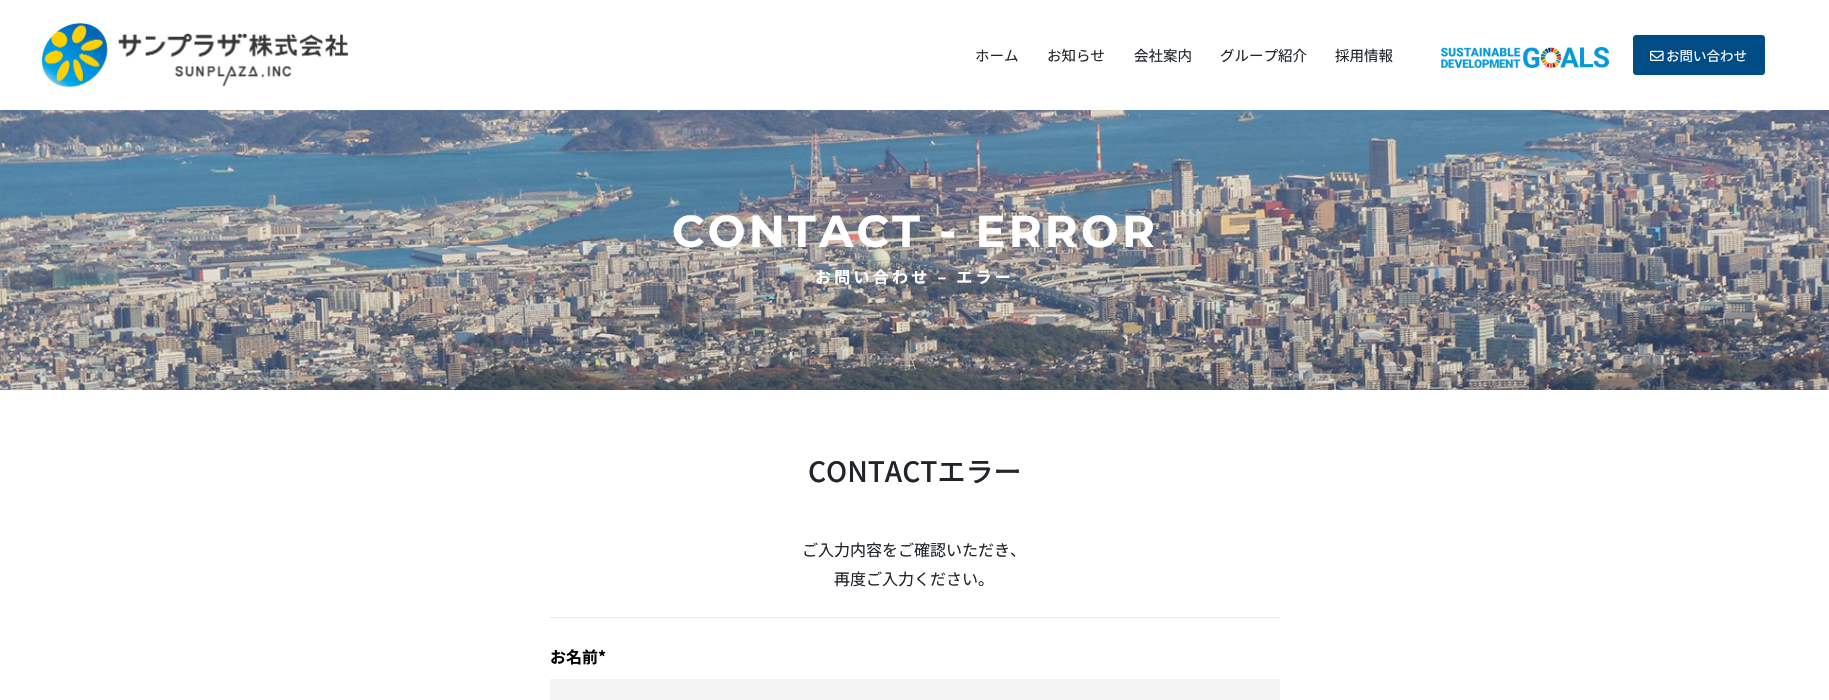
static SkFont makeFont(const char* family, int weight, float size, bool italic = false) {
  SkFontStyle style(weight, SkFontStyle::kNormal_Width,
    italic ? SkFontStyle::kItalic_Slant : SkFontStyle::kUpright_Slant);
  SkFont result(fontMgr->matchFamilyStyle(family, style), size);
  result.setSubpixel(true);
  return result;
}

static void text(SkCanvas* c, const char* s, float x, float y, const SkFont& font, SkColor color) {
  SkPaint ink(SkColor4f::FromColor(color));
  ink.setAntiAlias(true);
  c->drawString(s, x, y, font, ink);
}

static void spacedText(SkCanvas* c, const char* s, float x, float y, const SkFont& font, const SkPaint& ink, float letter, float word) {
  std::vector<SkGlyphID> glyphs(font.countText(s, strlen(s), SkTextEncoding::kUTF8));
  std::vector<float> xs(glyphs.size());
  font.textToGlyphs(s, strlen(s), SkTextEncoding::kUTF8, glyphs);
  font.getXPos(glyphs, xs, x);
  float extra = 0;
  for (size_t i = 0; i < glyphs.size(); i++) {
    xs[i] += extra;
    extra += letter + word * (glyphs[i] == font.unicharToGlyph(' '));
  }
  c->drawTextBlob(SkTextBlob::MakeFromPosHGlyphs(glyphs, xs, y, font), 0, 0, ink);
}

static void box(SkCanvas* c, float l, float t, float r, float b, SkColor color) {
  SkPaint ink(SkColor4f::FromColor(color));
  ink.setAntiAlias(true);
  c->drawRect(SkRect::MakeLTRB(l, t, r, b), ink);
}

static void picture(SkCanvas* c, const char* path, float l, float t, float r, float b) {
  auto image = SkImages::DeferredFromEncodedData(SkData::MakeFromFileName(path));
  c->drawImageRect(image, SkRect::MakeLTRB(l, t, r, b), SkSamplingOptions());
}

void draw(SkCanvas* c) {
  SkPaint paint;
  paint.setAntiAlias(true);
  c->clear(0xffffffff);
  picture(c, "img_01.png", 42, 22, 349, 88);
  SkFont face1 = makeFont("Noto Sans JP", 400, 14.5f);
  text(c, "ホーム", 975, 61, face1, 0xff212529);
  text(c, "お知らせ", 1047, 61, face1, 0xff212529);
  text(c, "会社案内", 1134, 61, face1, 0xff212529);
  text(c, "グループ紹介", 1220, 61, face1, 0xff212529);
  text(c, "採用情報", 1335, 61, face1, 0xff212529);
  picture(c, "img_02.png", 1441, 47, 1609, 68);
  paint.setColor(0xff004c86);
  c->drawRoundRect(SkRect::MakeLTRB(1633.5f, 35.5f, 1764.5f, 74.5f), 2.5f, 2.5f, paint);
  paint.setStyle(SkPaint::kStroke_Style);
  paint.setStrokeWidth(1);
  c->drawRoundRect(SkRect::MakeLTRB(1633.5f, 35.5f, 1764.5f, 74.5f), 2.5f, 2.5f, paint);
  picture(c, "img_03.png", 1650, 50, 1664, 61);
  SkFont face2 = makeFont("Noto Sans JP", 400, 13.5f);
  text(c, "お問い合わせ", 1666, 61, face2, 0xffffffff);
  picture(c, "img_04.png", 0, 110, 1829, 390);
  SkFont face3 = makeFont("Montserrat", 700, 44.75f);
  paint.setStyle(SkPaint::kFill_Style);
  paint.setColor(0xffffffff);
  spacedText(c, "CONTACT - ERROR", 672, 247, face3, paint, 3.25f, 0);
  SkFont face4 = makeFont("Noto Sans JP", 700, 16);
  spacedText(c, "お問い合わせ – エラー", 815, 283, face4, paint, 3.25f, 0);
  SkFont face5 = makeFont("Noto Sans JP", 500, 28);
  text(c, "CONTACTエラー", 808, 482, face5, 0xff212529);
  SkFont face6 = makeFont("Noto Sans JP", 400, 16);
  text(c, "ご入力内容をご確認いただき、", 802, 556, face6, 0xff212529);
  text(c, "再度ご入力ください。", 834, 585, face6, 0xff212529);
  box(c, 550, 617, 1280, 618, 0xffe6e6e6);
  text(c, "お名前*", 550, 663, face4, 0xff000000);
  box(c, 550, 679, 1280, 700, 0xfff3f3f3);
}
